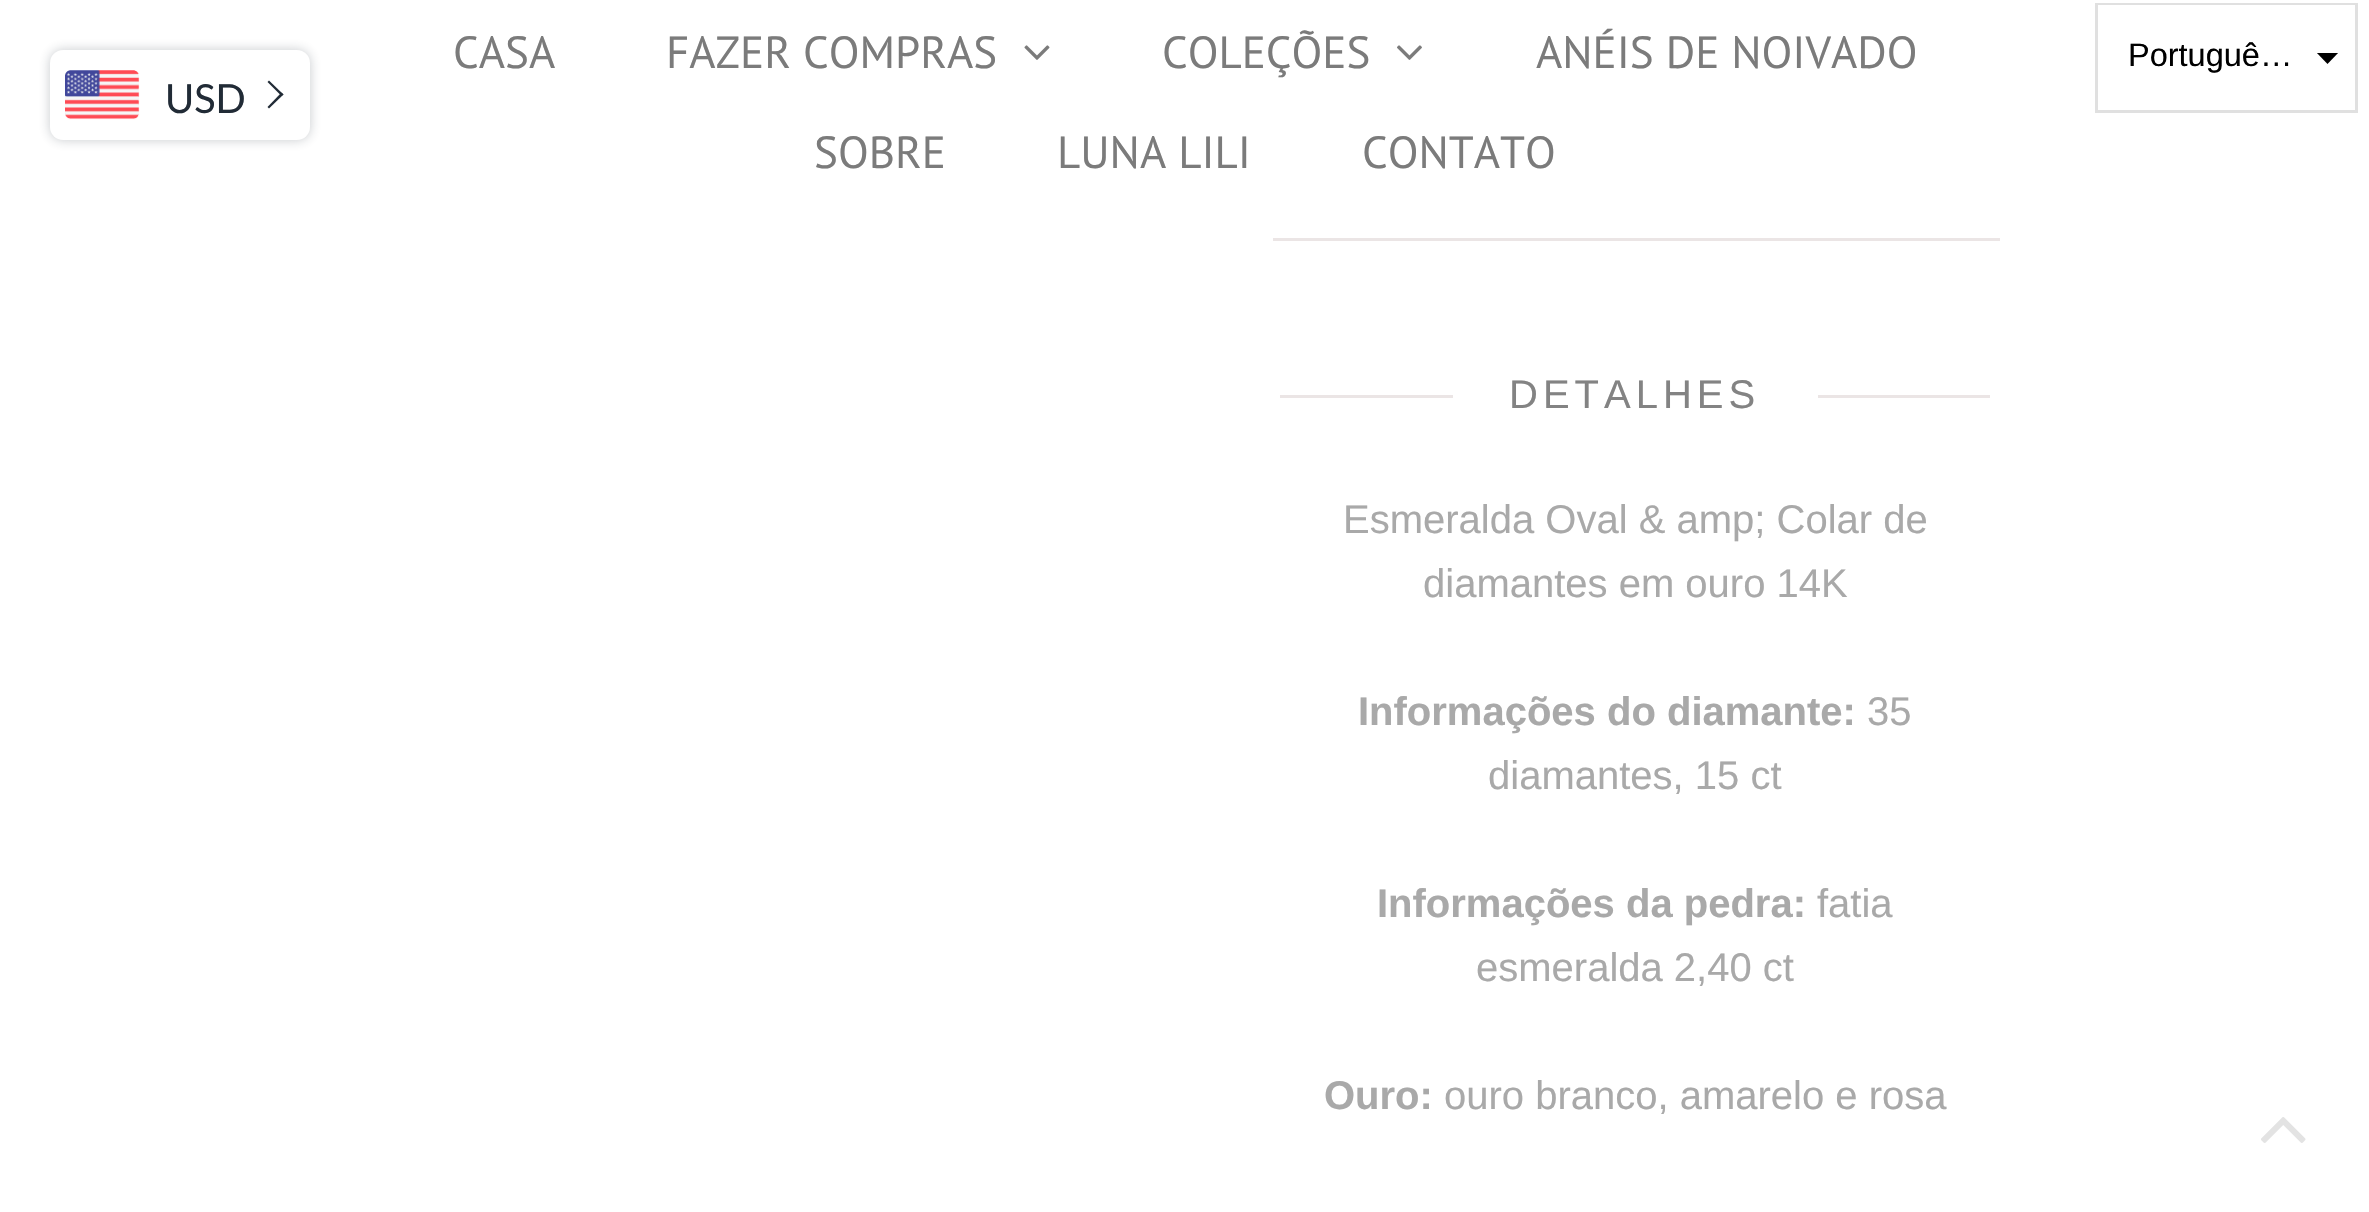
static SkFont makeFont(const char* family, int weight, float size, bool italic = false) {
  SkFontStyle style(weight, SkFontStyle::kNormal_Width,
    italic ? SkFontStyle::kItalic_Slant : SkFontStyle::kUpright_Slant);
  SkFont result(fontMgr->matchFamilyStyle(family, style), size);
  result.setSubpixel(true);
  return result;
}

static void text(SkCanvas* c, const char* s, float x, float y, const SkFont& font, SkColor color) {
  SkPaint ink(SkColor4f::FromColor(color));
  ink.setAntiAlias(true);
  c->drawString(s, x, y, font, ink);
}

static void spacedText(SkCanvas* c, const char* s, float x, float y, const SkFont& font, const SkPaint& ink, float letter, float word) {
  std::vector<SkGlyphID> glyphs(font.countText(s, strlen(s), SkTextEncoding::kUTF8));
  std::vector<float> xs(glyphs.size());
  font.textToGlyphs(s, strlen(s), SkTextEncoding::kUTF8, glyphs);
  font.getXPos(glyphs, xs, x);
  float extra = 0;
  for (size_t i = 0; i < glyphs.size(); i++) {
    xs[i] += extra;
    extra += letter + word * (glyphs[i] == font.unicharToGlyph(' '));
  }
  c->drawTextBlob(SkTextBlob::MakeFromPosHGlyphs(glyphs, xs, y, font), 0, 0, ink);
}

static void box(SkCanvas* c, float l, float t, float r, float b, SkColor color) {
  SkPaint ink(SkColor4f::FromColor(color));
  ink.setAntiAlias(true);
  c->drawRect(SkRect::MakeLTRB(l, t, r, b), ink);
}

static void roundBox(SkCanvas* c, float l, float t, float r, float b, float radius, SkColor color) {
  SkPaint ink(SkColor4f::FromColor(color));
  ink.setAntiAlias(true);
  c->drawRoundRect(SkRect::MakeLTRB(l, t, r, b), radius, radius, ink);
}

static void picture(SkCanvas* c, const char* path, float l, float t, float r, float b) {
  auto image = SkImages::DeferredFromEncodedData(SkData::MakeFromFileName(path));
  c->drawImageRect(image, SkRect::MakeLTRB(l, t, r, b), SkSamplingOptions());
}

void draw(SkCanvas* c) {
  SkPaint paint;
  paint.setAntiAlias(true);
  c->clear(0xffffffff);
  SkFont face1 = makeFont("PT Sans", 400, 45);
  text(c, "CASA", 453, 68, face1, 0xff7b7b7b);
  text(c, "FAZER COMPRAS", 666, 68, face1, 0xff7b7b7b);
  picture(c, "img_01.png", 1024, 45, 1050, 60);
  text(c, "COLEÇÕES", 1162, 68, face1, 0xff7b7b7b);
  picture(c, "img_02.png", 1397, 45, 1422, 60);
  text(c, "ANÉIS DE NOIVADO", 1536, 68, face1, 0xff7b7b7b);
  text(c, "SOBRE", 814, 168, face1, 0xff7b7b7b);
  text(c, "LUNA LILI", 1057, 168, face1, 0xff7b7b7b);
  text(c, "CONTATO", 1362, 168, face1, 0xff7b7b7b);
  box(c, 1273, 238, 2000, 241, 0xffebe5e5);
  box(c, 1280, 395, 1990, 398, 0xffebe5e5);
  box(c, 1453, 395, 1818, 398, 0xffffffff);
  SkFont face2 = makeFont("Liberation Sans", 400, 40);
  paint.setColor(0xff838383);
  spacedText(c, "DETALHES", 1509, 408, face2, paint, 5, 0);
  text(c, "Esmeralda Oval & amp; Colar de", 1343, 533, face2, 0xffa9a9a9);
  text(c, "diamantes em ouro 14K", 1423, 597, face2, 0xffa9a9a9);
  SkFont face3 = makeFont("Liberation Sans", 700, 40);
  text(c, "Informações do diamante:", 1358, 725, face3, 0xffa9a9a9);
  text(c, "35", 1867, 725, face2, 0xffa9a9a9);
  text(c, "diamantes, 15 ct", 1488, 789, face2, 0xffa9a9a9);
  text(c, "Informações da pedra:", 1377, 917, face3, 0xffa9a9a9);
  text(c, "fatia", 1817, 917, face2, 0xffa9a9a9);
  text(c, "esmeralda 2,40 ct", 1476, 981, face2, 0xffa9a9a9);
  text(c, "Ouro:", 1324, 1109, face3, 0xffa9a9a9);
  text(c, "ouro branco, amarelo e rosa", 1444, 1109, face2, 0xffa9a9a9);
  paint.setStyle(SkPaint::kStroke_Style);
  paint.setStrokeWidth(3);
  paint.setColor(0xffe0e0e0);
  c->drawRect(SkRect::MakeLTRB(2096.5f, 4.5f, 2356.5f, 111.5f), paint);
  box(c, 2098, 5, 2355, 6, 0xffffffff);
  SkFont face4 = makeFont("Liberation Sans", 400, 32.5f);
  text(c, "Portuguê…", 2128, 66, face4, 0xff000000);
  c->save();
  c->clipRect(SkRect::MakeLTRB(2315, 53, 2340, 65));
  paint.setStyle(SkPaint::kFill_Style);
  paint.setColor(0xff000000);
  c->drawPath(SkPathBuilder(SkPathFillType::kEvenOdd).moveTo(2340, 51).lineTo(2327.5f, 64).lineTo(2315, 51).close().detach(), paint);
  c->restore();
  paint.setColor(0x40212b36);
  paint.setMaskFilter(SkMaskFilter::MakeBlur(kNormal_SkBlurStyle, 6));
  c->drawRoundRect(SkRect::MakeLTRB(50, 50, 310, 140), 13, 13, paint);
  paint.setMaskFilter(nullptr);
  roundBox(c, 50, 50, 310, 140, 13, 0xffffffff);
  picture(c, "img_03.png", 65, 70, 140, 120);
  SkFont face5 = makeFont("Lato", 400, 40);
  text(c, "USD", 165, 113, face5, 0xff212b36);
  paint.setColor(0xff212b36);
  c->drawPath(SkPathBuilder().moveTo(267.5f, 82).lineTo(269, 80.5f).lineTo(283.5f, 94.5f).lineTo(281.5f, 96).close().detach(), paint);
  c->drawPath(SkPathBuilder().moveTo(267.5f, 107).lineTo(281.5f, 92.5f).lineTo(283.5f, 94.5f).lineTo(269, 108.5f).close().detach(), paint);
  picture(c, "img_04.png", 2261, 1117, 2306, 1143);
}
